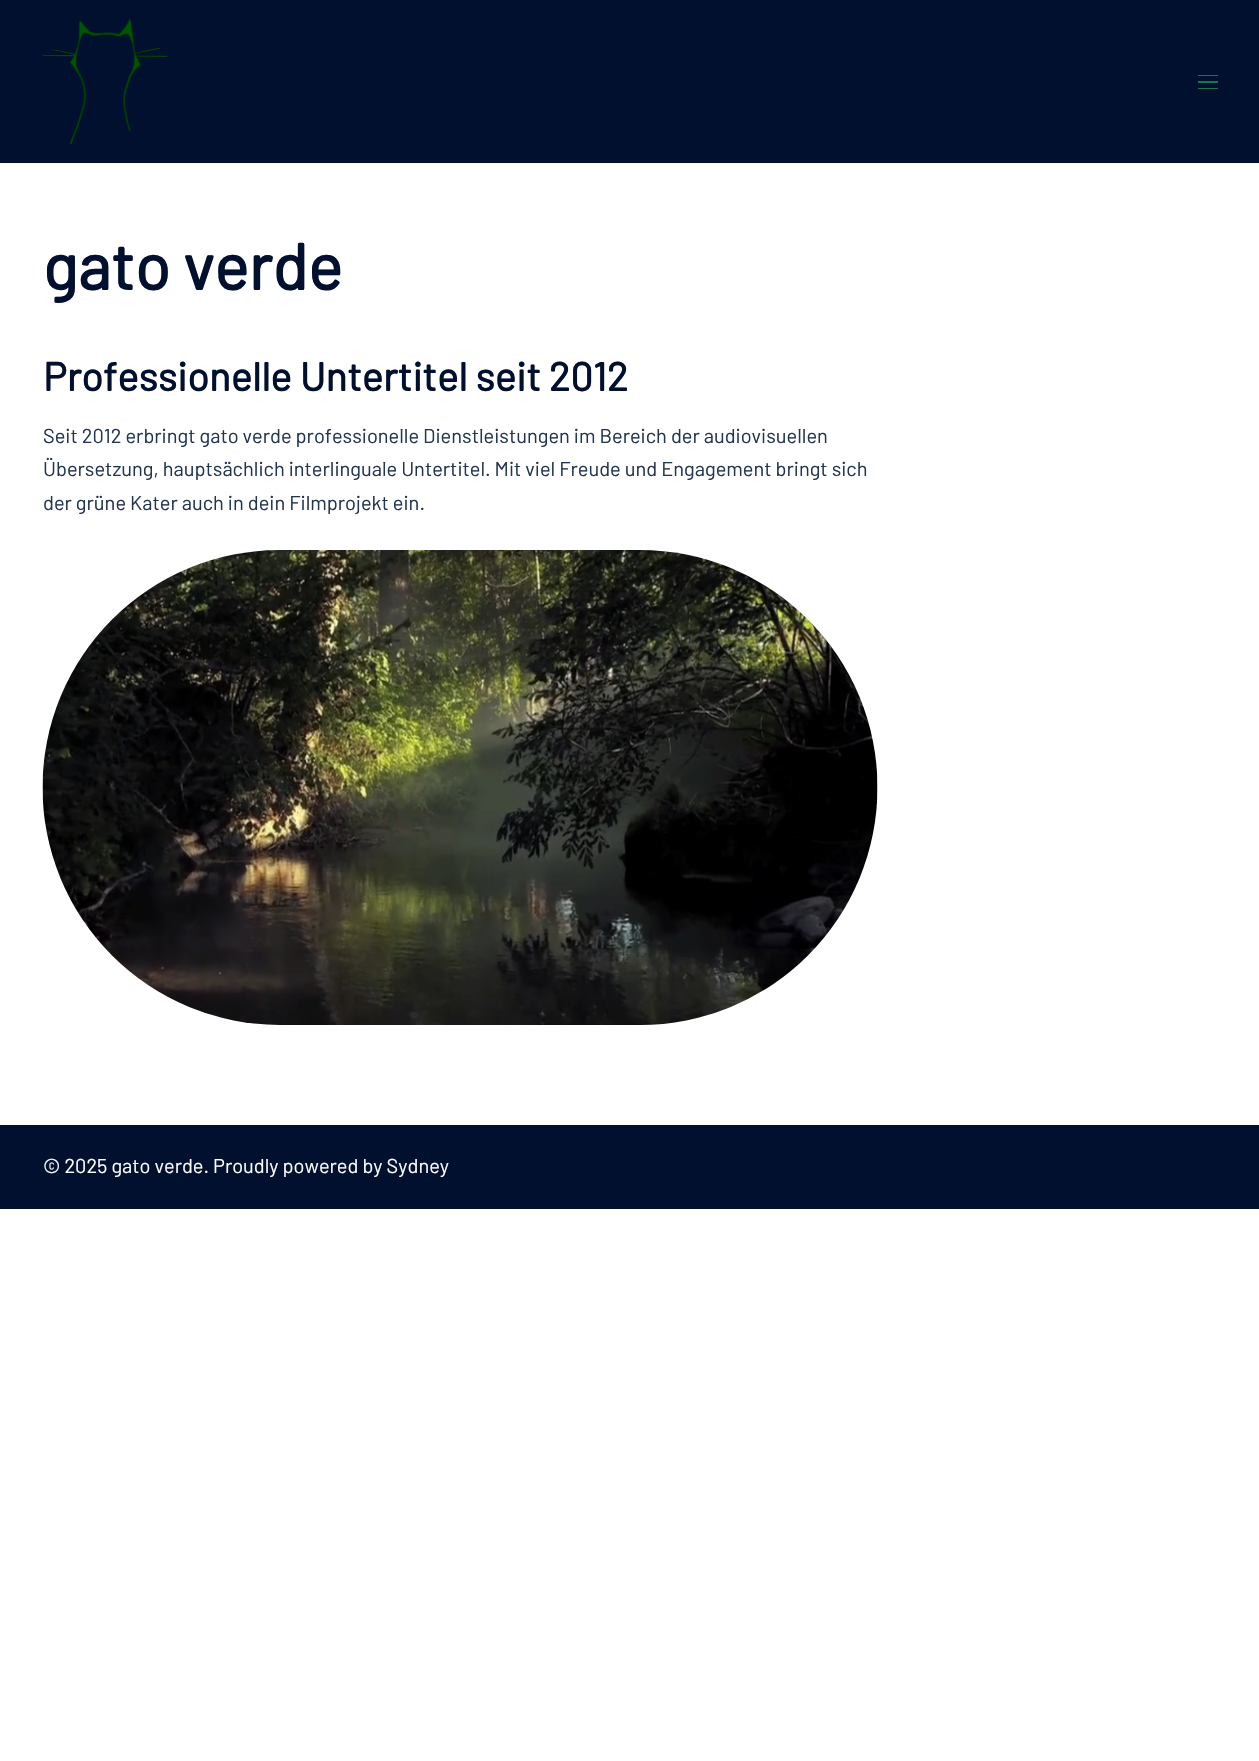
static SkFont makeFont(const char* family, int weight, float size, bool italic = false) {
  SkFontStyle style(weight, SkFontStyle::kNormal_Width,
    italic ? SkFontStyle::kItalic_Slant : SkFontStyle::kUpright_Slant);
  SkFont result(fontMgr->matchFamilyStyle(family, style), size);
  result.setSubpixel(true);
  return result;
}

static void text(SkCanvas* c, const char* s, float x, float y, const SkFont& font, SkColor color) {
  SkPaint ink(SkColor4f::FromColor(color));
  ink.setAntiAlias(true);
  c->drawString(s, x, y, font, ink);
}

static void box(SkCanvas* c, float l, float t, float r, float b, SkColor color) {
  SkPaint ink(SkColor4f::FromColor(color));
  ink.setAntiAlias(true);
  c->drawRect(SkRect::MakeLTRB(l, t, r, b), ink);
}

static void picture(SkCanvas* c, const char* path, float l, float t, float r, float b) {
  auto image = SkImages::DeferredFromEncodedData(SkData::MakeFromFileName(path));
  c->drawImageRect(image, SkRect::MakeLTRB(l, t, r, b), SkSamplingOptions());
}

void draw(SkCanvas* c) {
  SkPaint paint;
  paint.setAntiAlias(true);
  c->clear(0xffffffff);
  box(c, 0, 0, 1259, 163, 0xff00102e);
  picture(c, "img_01.png", 42, 18, 168, 144);
  box(c, 1198, 75, 1218, 76, 0xff197743);
  box(c, 1198, 81, 1218, 83, 0xff197743);
  box(c, 1198, 88, 1218, 89, 0xff197743);
  SkFont face1 = makeFont("Barlow", 700, 65);
  text(c, "gato verde", 43, 290, face1, 0xff00102e);
  SkFont face2 = makeFont("Barlow", 700, 40);
  text(c, "Professionelle Untertitel seit 2012", 43, 391, face2, 0xff00102e);
  SkFont face3 = makeFont("Barlow", 400, 20);
  text(c, "Seit 2012 erbringt gato verde professionelle Dienstleistungen im Bereich der audiovisuellen", 43, 443, face3, 0xff233452);
  text(c, "Übersetzung, hauptsächlich interlinguale Untertitel. Mit viel Freude und Engagement bringt sich", 43, 476, face3, 0xff233452);
  text(c, "der grüne Kater auch in dein Filmprojekt ein.", 43, 510, face3, 0xff233452);
  picture(c, "img_02.png", 42, 550, 878, 1025);
  box(c, 0, 1125, 1259, 1209, 0xff00102e);
  text(c, "© 2025 gato verde. Proudly powered by Sydney", 43, 1173, face3, 0xffffffff);
}
